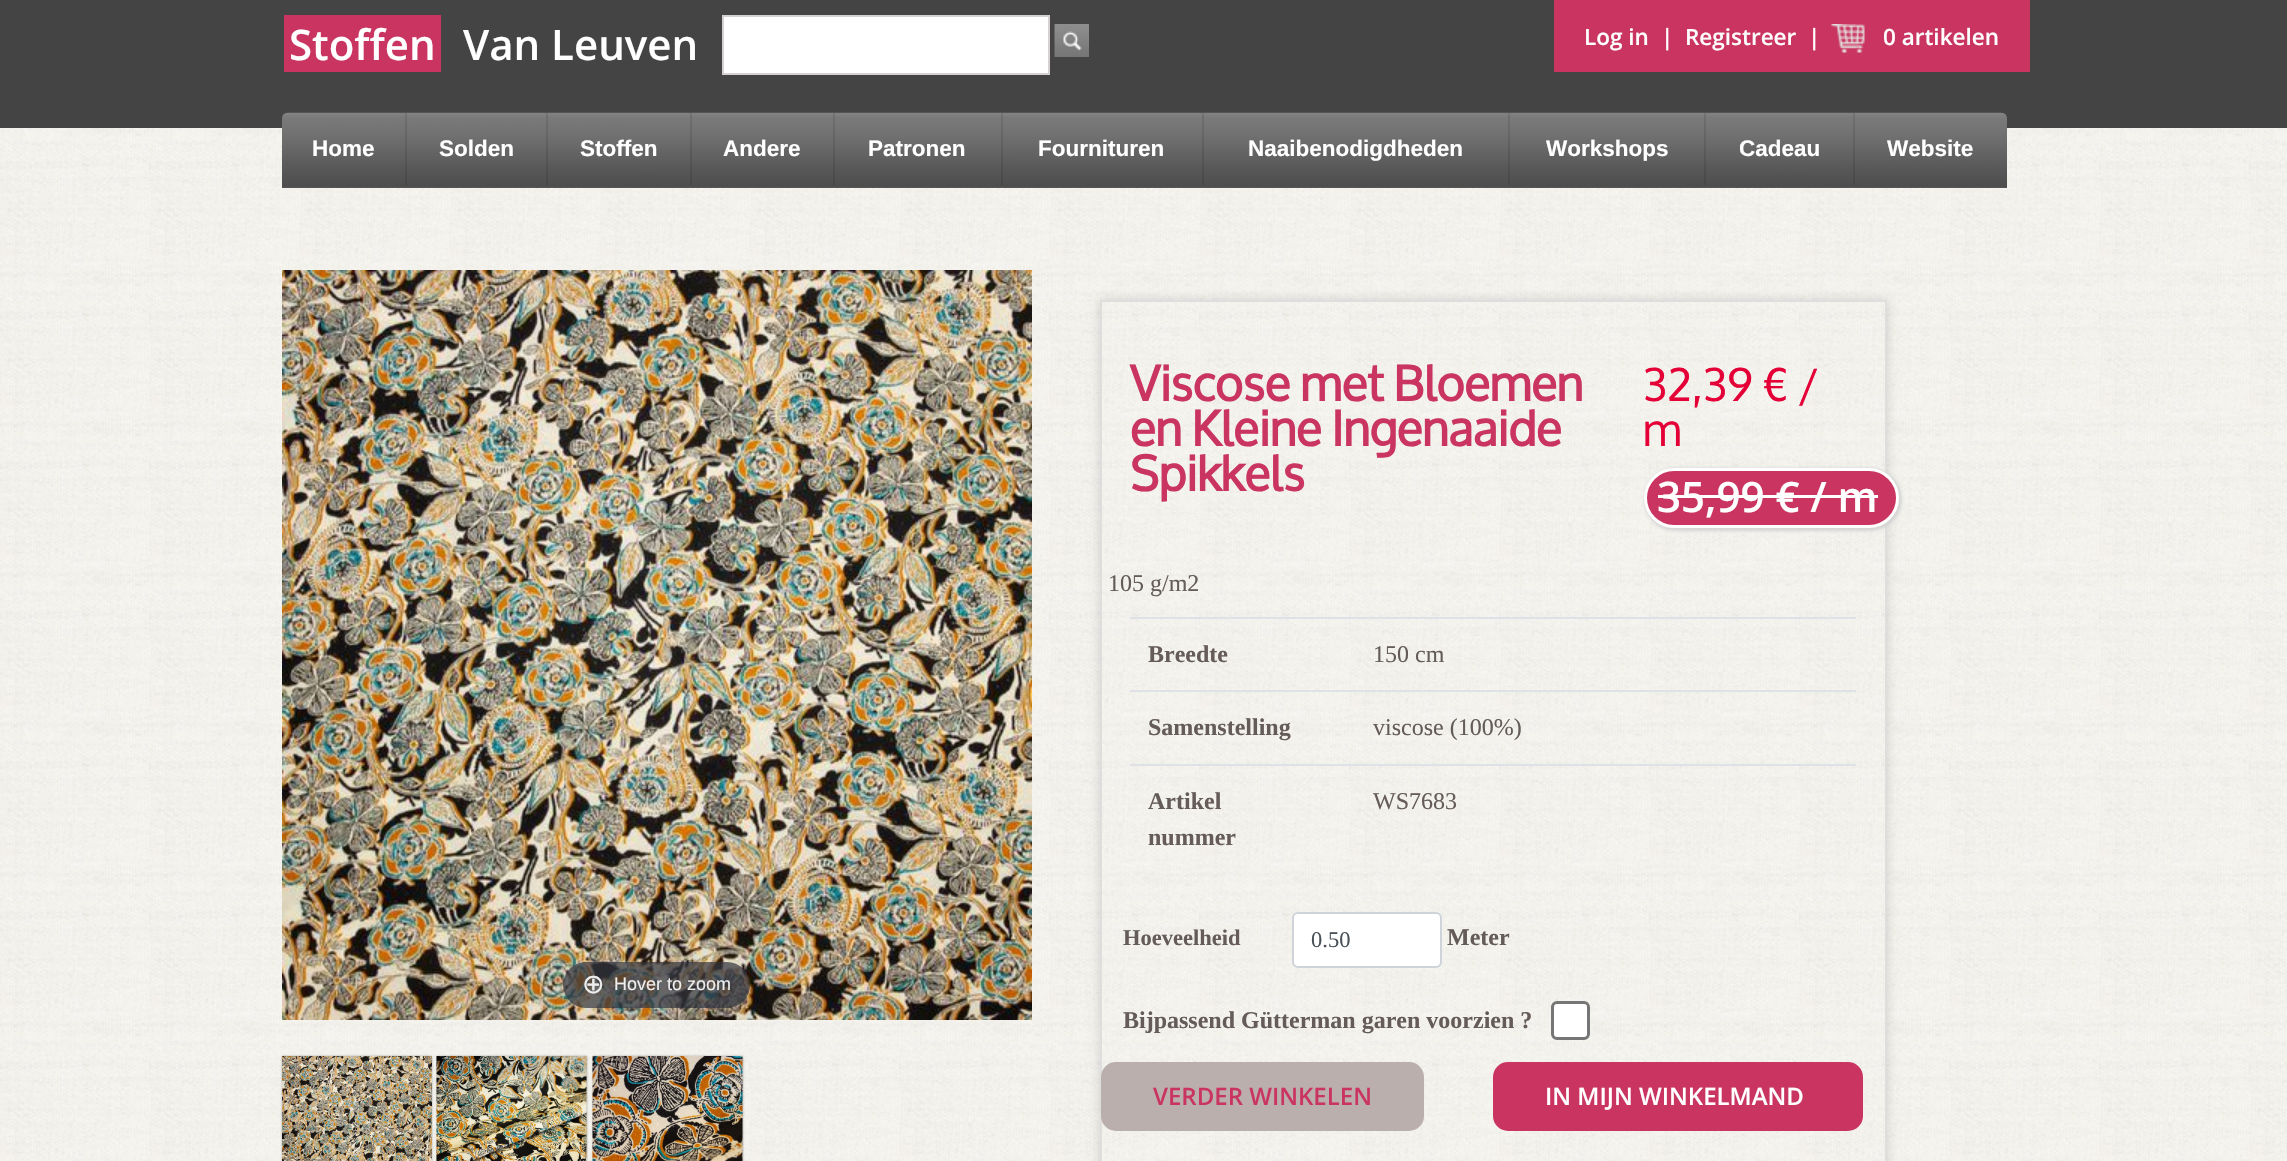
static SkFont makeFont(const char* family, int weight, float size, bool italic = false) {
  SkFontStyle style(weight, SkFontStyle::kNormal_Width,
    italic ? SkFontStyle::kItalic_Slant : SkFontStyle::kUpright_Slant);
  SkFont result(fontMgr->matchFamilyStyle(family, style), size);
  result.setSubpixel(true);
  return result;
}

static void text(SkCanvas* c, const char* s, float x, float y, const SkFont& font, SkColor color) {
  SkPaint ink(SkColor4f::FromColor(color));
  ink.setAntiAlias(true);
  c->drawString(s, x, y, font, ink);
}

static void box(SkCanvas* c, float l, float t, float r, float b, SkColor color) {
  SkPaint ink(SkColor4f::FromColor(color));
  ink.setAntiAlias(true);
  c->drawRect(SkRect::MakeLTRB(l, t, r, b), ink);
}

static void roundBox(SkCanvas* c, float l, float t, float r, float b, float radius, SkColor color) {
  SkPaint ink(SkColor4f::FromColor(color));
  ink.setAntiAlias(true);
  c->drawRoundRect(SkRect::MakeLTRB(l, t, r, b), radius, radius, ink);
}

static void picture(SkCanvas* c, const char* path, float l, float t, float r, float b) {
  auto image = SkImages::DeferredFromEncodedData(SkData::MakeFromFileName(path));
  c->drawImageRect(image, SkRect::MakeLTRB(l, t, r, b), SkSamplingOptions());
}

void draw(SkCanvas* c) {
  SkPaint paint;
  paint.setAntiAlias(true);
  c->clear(0xffffffff);
  picture(c, "img_01.png", 0, 128, 2287, 1161);
  box(c, 0, 0, 2287, 128, 0xff444444);
  box(c, 284, 15, 441, 72, 0xffca3460);
  SkFont face1 = makeFont("Open Sans", 600, 42);
  text(c, "Stoffen", 289, 60, face1, 0xffffffff);
  text(c, "Van Leuven", 463, 60, face1, 0xffffffff);
  paint.setColor(0xffffffff);
  c->drawRect(SkRect::MakeLTRB(723, 16, 1049, 74), paint);
  paint.setStyle(SkPaint::kStroke_Style);
  paint.setStrokeWidth(2);
  paint.setColor(0xffd5d1d1);
  c->drawRect(SkRect::MakeLTRB(723, 16, 1049, 74), paint);
  picture(c, "img_02.png", 1054, 24, 1089, 57);
  box(c, 1554, 0, 2030, 72, 0xffca3460);
  SkFont face2 = makeFont("Open Sans", 600, 22.5f);
  text(c, "Log in", 1584, 45, face2, 0xffffffff);
  text(c, "|", 1661, 45, face2, 0xffffffff);
  text(c, "Registreer", 1685, 45, face2, 0xffffffff);
  text(c, "|", 1808, 45, face2, 0xffffffff);
  picture(c, "img_03.png", 1831, 24, 1865, 53);
  text(c, "0 artikelen", 1883, 45, face2, 0xffffffff);
  paint.setStyle(SkPaint::kFill_Style);
  paint.setColor(0xff555555);
  c->drawPath(SkPathBuilder().moveTo(288, 113).lineTo(2001, 113).cubicTo(2004.5f, 113, 2007, 115.5f, 2007, 119).lineTo(2007, 188).lineTo(282, 188).lineTo(282, 119).cubicTo(282, 115.5f, 284.5f, 113, 288, 113).close().detach(), paint);
  picture(c, "img_04.png", 282, 112, 2007, 187);
  box(c, 405, 113, 407, 185, 0x1a000000);
  SkFont face3 = makeFont("Liberation Sans", 700, 22.5f);
  text(c, "Home", 312, 156, face3, 0xffffffff);
  box(c, 546, 113, 548, 185, 0x1a000000);
  text(c, "Solden", 439, 156, face3, 0xffffffff);
  box(c, 690, 113, 692, 185, 0x1a000000);
  text(c, "Stoffen", 580, 156, face3, 0xffffffff);
  box(c, 833, 113, 835, 185, 0x1a000000);
  text(c, "Andere", 723, 156, face3, 0xffffffff);
  box(c, 1001, 113, 1003, 185, 0x1a000000);
  text(c, "Patronen", 868, 156, face3, 0xffffffff);
  box(c, 1202, 113, 1204, 185, 0x1a000000);
  text(c, "Fournituren", 1038, 156, face3, 0xffffffff);
  box(c, 1508, 113, 1510, 185, 0x1a000000);
  text(c, "Naaibenodigdheden", 1248, 156, face3, 0xffffffff);
  box(c, 1704, 113, 1706, 185, 0x1a000000);
  text(c, "Workshops", 1546, 156, face3, 0xffffffff);
  box(c, 1853, 113, 1855, 185, 0x1a000000);
  text(c, "Cadeau", 1739, 156, face3, 0xffffffff);
  text(c, "Website", 1887, 156, face3, 0xffffffff);
  picture(c, "img_05.png", 282, 270, 1032, 1020);
  roundBox(c, 563, 962, 750, 1008, 23, 0xb331333d);
  SkFont face4 = makeFont("DejaVu Sans", 400, 27);
  text(c, "⊕", 582, 993, face4, 0xffeeeeee);
  SkFont face5 = makeFont("Liberation Sans", 400, 18);
  text(c, "Hover to zoom", 614, 990, face5, 0xffeeeeee);
  paint.setColor(0x4d000000);
  paint.setMaskFilter(SkMaskFilter::MakeBlur(kNormal_SkBlurStyle, 1));
  c->drawRect(SkRect::MakeLTRB(282, 1056, 432, 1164), paint);
  paint.setMaskFilter(nullptr);
  picture(c, "img_06.png", 282, 1056, 432, 1161);
  paint.setMaskFilter(SkMaskFilter::MakeBlur(kNormal_SkBlurStyle, 1));
  c->drawRect(SkRect::MakeLTRB(437, 1056, 587, 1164), paint);
  paint.setMaskFilter(nullptr);
  picture(c, "img_07.png", 436, 1056, 587, 1161);
  paint.setMaskFilter(SkMaskFilter::MakeBlur(kNormal_SkBlurStyle, 1));
  c->drawRect(SkRect::MakeLTRB(593, 1056, 743, 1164), paint);
  paint.setMaskFilter(nullptr);
  picture(c, "img_08.png", 592, 1056, 743, 1161);
  c->save();
  c->clipPath(SkPathBuilder(SkPathFillType::kEvenOdd).moveTo(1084, 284).lineTo(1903, 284).lineTo(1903, 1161).lineTo(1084, 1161).close().moveTo(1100, 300).lineTo(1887, 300).lineTo(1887, 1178).lineTo(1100, 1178).close().detach(), true);
  paint.setColor(0x26000000);
  paint.setMaskFilter(SkMaskFilter::MakeBlur(kNormal_SkBlurStyle, 5));
  c->drawRect(SkRect::MakeLTRB(1100, 300, 1887, 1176), paint);
  paint.setMaskFilter(nullptr);
  c->restore();
  paint.setStyle(SkPaint::kStroke_Style);
  paint.setColor(0xffdfdede);
  c->drawRect(SkRect::MakeLTRB(1101, 301, 1886, 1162), paint);
  SkFont face6 = makeFont("Oxygen", 700, 48);
  text(c, "Viscose met Bloemen", 1130, 401, face6, 0xffca3460);
  text(c, "en Kleine Ingenaaide", 1130, 446, face6, 0xffca3460);
  text(c, "Spikkels", 1130, 491, face6, 0xffca3460);
  SkFont face7 = makeFont("Oxygen", 400, 45);
  text(c, "32,39 € /", 1643, 401, face7, 0xffe40037);
  text(c, "m", 1643, 446, face7, 0xffe40037);
  paint.setStyle(SkPaint::kFill_Style);
  paint.setColor(0xffd5d5d5);
  paint.setMaskFilter(SkMaskFilter::MakeBlur(kNormal_SkBlurStyle, 1.5f));
  c->drawRoundRect(SkRect::MakeLTRB(1644, 468, 1902, 531), 31.5f, 31.5f, paint);
  paint.setMaskFilter(nullptr);
  paint.setColor(0xffca3460);
  c->drawRoundRect(SkRect::MakeLTRB(1645.5f, 469.5f, 1897.5f, 526.5f), 28.5f, 28.5f, paint);
  paint.setStyle(SkPaint::kStroke_Style);
  paint.setStrokeWidth(3);
  paint.setColor(0xffffffff);
  c->drawRoundRect(SkRect::MakeLTRB(1645.5f, 469.5f, 1897.5f, 526.5f), 28.5f, 28.5f, paint);
  text(c, "35,99 € / m", 1657, 512, face1, 0xffffffff);
  box(c, 1658, 495, 1878, 498, 0xffffffff);
  SkFont face8 = makeFont("Liberation Serif", 400, 24);
  text(c, "105 g/m2", 1108, 591, face8, 0xff655c5a);
  SkFont face9 = makeFont("Liberation Serif", 700, 24);
  text(c, "Breedte", 1148, 662, face9, 0xff655c5a);
  box(c, 1130, 617, 1856, 619, 0xffdee2e6);
  text(c, "150 cm", 1373, 662, face8, 0xff655c5a);
  text(c, "Samenstelling", 1148, 735, face9, 0xff655c5a);
  box(c, 1130, 690, 1856, 692, 0xffdee2e6);
  text(c, "viscose (100%)", 1373, 735, face8, 0xff655c5a);
  text(c, "Artikel", 1148, 809, face9, 0xff655c5a);
  text(c, "nummer", 1148, 845, face9, 0xff655c5a);
  box(c, 1130, 764, 1856, 766, 0xffdee2e6);
  text(c, "WS7683", 1373, 809, face8, 0xff655c5a);
  SkFont face10 = makeFont("Liberation Serif", 700, 22.5f);
  text(c, "Hoeveelheid", 1123, 945, face10, 0xff655c5a);
  paint.setStyle(SkPaint::kFill_Style);
  c->drawRoundRect(SkRect::MakeLTRB(1293, 913, 1441, 967), 5, 5, paint);
  paint.setStyle(SkPaint::kStroke_Style);
  paint.setStrokeWidth(2);
  paint.setColor(0xffced4da);
  c->drawRoundRect(SkRect::MakeLTRB(1293, 913, 1441, 967), 5, 5, paint);
  SkFont face11 = makeFont("Liberation Serif", 400, 22.5f);
  text(c, "0.50", 1311, 947, face11, 0xff495057);
  text(c, "Meter", 1447, 945, face9, 0xff655c5a);
  text(c, "Bijpassend Gütterman garen voorzien ?", 1123, 1028, face9, 0xff655c5a);
  paint.setStyle(SkPaint::kFill_Style);
  paint.setColor(0xffffffff);
  c->drawRoundRect(SkRect::MakeLTRB(1552.5f, 1002.5f, 1588.5f, 1038.5f), 4.5f, 4.5f, paint);
  paint.setStyle(SkPaint::kStroke_Style);
  paint.setStrokeWidth(3);
  paint.setColor(0xff767676);
  c->drawRoundRect(SkRect::MakeLTRB(1552.5f, 1002.5f, 1588.5f, 1038.5f), 4.5f, 4.5f, paint);
  roundBox(c, 1101, 1062, 1424, 1131, 15, 0xffbbafae);
  SkFont face12 = makeFont("Open Sans", 600, 24);
  text(c, "VERDER WINKELEN", 1153, 1105, face12, 0xffca3460);
  roundBox(c, 1493, 1062, 1863, 1131, 15, 0xffca3460);
  text(c, "IN MIJN WINKELMAND", 1545, 1105, face12, 0xffffffff);
}
